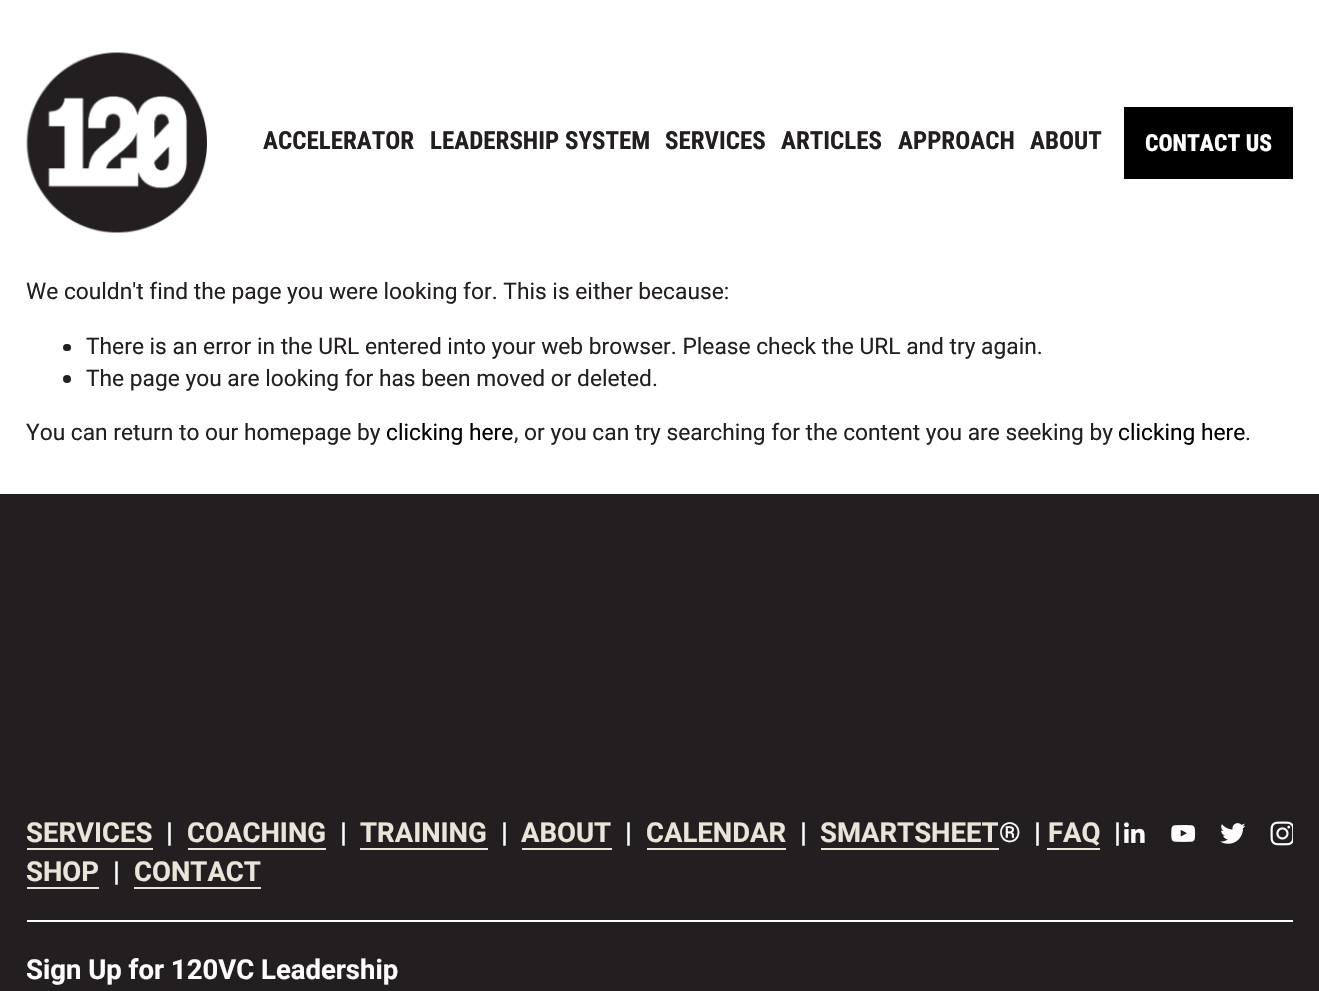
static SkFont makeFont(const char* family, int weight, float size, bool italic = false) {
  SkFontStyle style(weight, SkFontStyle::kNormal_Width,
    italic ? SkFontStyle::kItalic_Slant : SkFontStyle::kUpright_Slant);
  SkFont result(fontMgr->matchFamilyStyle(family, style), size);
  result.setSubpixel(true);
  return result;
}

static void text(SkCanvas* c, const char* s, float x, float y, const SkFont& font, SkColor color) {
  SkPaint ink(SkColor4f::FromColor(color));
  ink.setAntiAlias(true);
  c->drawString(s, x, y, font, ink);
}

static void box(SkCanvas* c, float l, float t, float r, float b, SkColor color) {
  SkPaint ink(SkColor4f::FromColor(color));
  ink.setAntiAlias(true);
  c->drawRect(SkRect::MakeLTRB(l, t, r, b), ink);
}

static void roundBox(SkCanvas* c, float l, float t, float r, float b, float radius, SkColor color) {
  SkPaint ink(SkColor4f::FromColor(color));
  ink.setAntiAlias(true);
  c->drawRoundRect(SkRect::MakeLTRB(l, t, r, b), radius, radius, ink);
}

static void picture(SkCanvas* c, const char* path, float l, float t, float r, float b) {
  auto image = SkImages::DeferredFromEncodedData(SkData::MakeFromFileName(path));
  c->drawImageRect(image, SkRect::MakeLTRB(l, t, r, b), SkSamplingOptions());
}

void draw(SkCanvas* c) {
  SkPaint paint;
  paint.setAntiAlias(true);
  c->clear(0xffffffff);
  picture(c, "img_01.png", 26, 52, 207, 233);
  SkFont face1 = makeFont("Roboto Condensed", 700, 25);
  text(c, "ACCELERATOR", 263, 149, face1, 0xff231f21);
  text(c, "LEADERSHIP SYSTEM", 430, 149, face1, 0xff231f21);
  text(c, "SERVICES", 665, 149, face1, 0xff231f21);
  text(c, "ARTICLES", 781, 149, face1, 0xff231f21);
  text(c, "APPROACH", 898, 149, face1, 0xff231f21);
  text(c, "ABOUT", 1030, 149, face1, 0xff231f21);
  box(c, 1124, 107, 1293, 179, 0xff000000);
  SkFont face2 = makeFont("Roboto Condensed", 800, 23.5f);
  text(c, "CONTACT US", 1145, 151, face2, 0xffffffff);
  SkFont face3 = makeFont("Roboto", 400, 22.75f);
  text(c, "We couldn't find the page you were looking for. This is either because:", 26, 299, face3, 0xff231f21);
  roundBox(c, 63, 344, 71, 351, 3.5f, 0xff231f21);
  text(c, "There is an error in the URL entered into your web browser. Please check the URL and try again.", 86, 354, face3, 0xff231f21);
  paint.setColor(0xff231f21);
  c->drawCircle(67, 379, 4, paint);
  text(c, "The page you are looking for has been moved or deleted.", 86, 386, face3, 0xff231f21);
  text(c, "You can return to our homepage by", 26, 440, face3, 0xff231f21);
  text(c, "clicking here", 386, 440, face3, 0xff000000);
  text(c, ", or you can try searching for the content you are seeking by", 514, 440, face3, 0xff231f21);
  text(c, "clicking here", 1118, 440, face3, 0xff000000);
  text(c, ".", 1245, 440, face3, 0xff231f21);
  box(c, 0, 494, 1319, 991, 0xff231f21);
  SkFont face4 = makeFont("Roboto", 700, 27.5f);
  text(c, "SERVICES", 26, 842, face4, 0xffe8e5d9);
  box(c, 27, 848, 153, 850, 0xffe8e5d9);
  text(c, "|", 166, 842, face4, 0xffffffff);
  text(c, "COACHING", 187, 842, face4, 0xffe8e5d9);
  box(c, 188, 848, 326, 850, 0xffe8e5d9);
  text(c, "|", 340, 842, face4, 0xffffffff);
  text(c, "TRAINING", 360, 842, face4, 0xffe8e5d9);
  box(c, 360, 848, 488, 850, 0xffe8e5d9);
  text(c, "|", 501, 842, face4, 0xffffffff);
  text(c, "ABOUT", 521, 842, face4, 0xffe8e5d9);
  box(c, 522, 848, 612, 850, 0xffe8e5d9);
  text(c, "|", 625, 842, face4, 0xffffffff);
  text(c, "CALENDAR", 646, 842, face4, 0xffe8e5d9);
  box(c, 647, 848, 786, 850, 0xffe8e5d9);
  text(c, "|", 800, 842, face4, 0xffffffff);
  text(c, "SMARTSHEET", 820, 842, face4, 0xffe8e5d9);
  box(c, 821, 848, 999, 850, 0xffe8e5d9);
  SkFont face5 = makeFont("Roboto", 400, 27.5f);
  text(c, "®", 999, 842, face5, 0xffffffff);
  text(c, "|", 1034, 842, face4, 0xffffffff);
  text(c, "FAQ", 1048, 842, face4, 0xffe8e5d9);
  box(c, 1047, 848, 1100, 850, 0xffe8e5d9);
  text(c, "|", 1114, 842, face4, 0xffffffff);
  text(c, "SHOP", 26, 881, face4, 0xffe8e5d9);
  box(c, 27, 887, 99, 889, 0xffe8e5d9);
  text(c, "|", 113, 881, face4, 0xffffffff);
  text(c, "CONTACT", 134, 881, face4, 0xffe8e5d9);
  box(c, 134, 887, 261, 889, 0xffe8e5d9);
  picture(c, "img_02.png", 1124, 822, 1145, 843);
  picture(c, "img_03.png", 1171, 825, 1196, 842);
  picture(c, "img_04.png", 1220, 823, 1245, 844);
  picture(c, "img_05.png", 1270, 821, 1293, 846);
  box(c, 27, 920, 1293, 922, 0xffffffff);
  text(c, "Sign Up for 120VC Leadership", 26, 979, face4, 0xffffffff);
}
